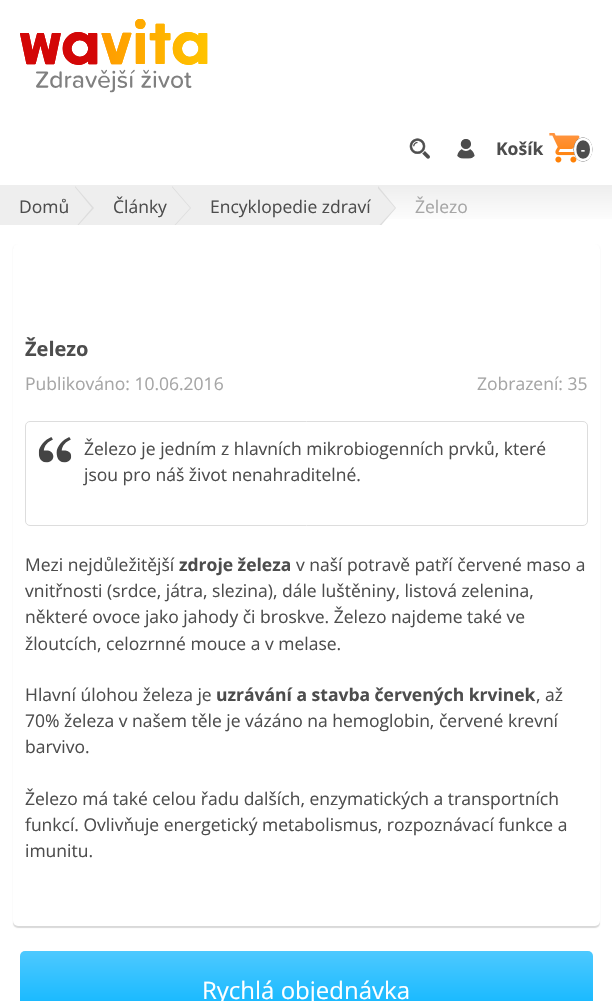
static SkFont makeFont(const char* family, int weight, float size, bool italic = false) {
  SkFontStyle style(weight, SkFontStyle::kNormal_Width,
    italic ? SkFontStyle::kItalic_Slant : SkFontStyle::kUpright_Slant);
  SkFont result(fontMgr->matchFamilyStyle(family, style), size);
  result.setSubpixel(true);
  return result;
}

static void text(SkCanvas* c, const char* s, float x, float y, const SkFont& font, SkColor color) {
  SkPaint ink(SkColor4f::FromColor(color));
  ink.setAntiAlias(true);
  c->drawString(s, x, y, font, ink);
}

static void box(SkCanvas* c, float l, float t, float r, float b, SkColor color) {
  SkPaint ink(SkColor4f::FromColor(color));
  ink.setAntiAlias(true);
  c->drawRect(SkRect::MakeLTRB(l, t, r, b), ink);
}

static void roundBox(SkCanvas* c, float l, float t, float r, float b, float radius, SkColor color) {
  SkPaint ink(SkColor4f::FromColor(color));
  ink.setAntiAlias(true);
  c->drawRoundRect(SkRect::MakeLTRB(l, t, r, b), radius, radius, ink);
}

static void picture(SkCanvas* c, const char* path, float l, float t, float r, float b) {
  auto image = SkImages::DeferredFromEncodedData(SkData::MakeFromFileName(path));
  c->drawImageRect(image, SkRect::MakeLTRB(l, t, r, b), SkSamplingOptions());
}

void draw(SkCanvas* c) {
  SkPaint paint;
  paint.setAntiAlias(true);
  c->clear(0xffffffff);
  picture(c, "img_01.png", 20, 19, 208, 93);
  box(c, 0, 185, 612, 186, 0xffeeeeee);
  picture(c, "img_02.png", 409, 138, 430, 159);
  picture(c, "img_03.png", 457, 139, 475, 159);
  SkFont face1 = makeFont("Open Sans", 700, 17.5f);
  text(c, "Košík", 496, 155, face1, 0xff4d4d4d);
  picture(c, "img_04.png", 549, 133, 580, 163);
  paint.setColor(0xff4d4d4d);
  c->drawOval(SkRect::MakeLTRB(573.5f, 137.5f, 592.5f, 161.5f), paint);
  paint.setStyle(SkPaint::kStroke_Style);
  paint.setStrokeWidth(2.5f);
  paint.setColor(0xffffffff);
  c->drawPath(SkPathBuilder().moveTo(583, 139).cubicTo(594, 139, 594, 160, 583, 160).cubicTo(572.5f, 160, 572.5f, 139, 583, 139).close().detach(), paint);
  SkFont face2 = makeFont("Open Sans", 700, 12);
  text(c, "-", 581, 154, face2, 0xffffffff);
  paint.setStyle(SkPaint::kFill_Style);
  {
    const SkColor colors[] = {0xffeeeeee, 0xffffffff};
    const float stops[] = {0, 1};
    const SkPoint ends[] = {{306, 186}, {306, 225}};
    paint.setShader(SkGradientShader::MakeLinear(ends, colors, stops, 2, SkTileMode::kClamp));
    paint.setAlpha(255);
  }
  c->drawRect(SkRect::MakeLTRB(378, 186, 612, 219), paint);
  box(c, 0, 186, 378, 225, 0xffeeeeee);
  c->save();
  c->clipRect(SkRect::MakeLTRB(0, 186, 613, 225));
  paint.setShader(nullptr);
  paint.setColor(0xffdddddd);
  c->drawPath(SkPathBuilder().moveTo(75, 229).lineTo(75, 186).lineTo(94, 208).close().detach(), paint);
  paint.setColor(0xffeeeeee);
  c->drawPath(SkPathBuilder().moveTo(74, 229).lineTo(74, 186).lineTo(92, 208).close().detach(), paint);
  c->restore();
  SkFont face3 = makeFont("Open Sans", 400, 17.5f);
  text(c, "Domů", 19, 213, face3, 0xff4d4d4d);
  c->save();
  c->clipRect(SkRect::MakeLTRB(0, 186, 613, 225));
  paint.setColor(0xffdddddd);
  c->drawPath(SkPathBuilder().moveTo(172, 229).lineTo(172, 186).lineTo(191, 208).close().detach(), paint);
  paint.setColor(0xffeeeeee);
  c->drawPath(SkPathBuilder().moveTo(171, 229).lineTo(171, 186).lineTo(190, 208).close().detach(), paint);
  c->restore();
  text(c, "Články", 113, 213, face3, 0xff4d4d4d);
  c->save();
  c->clipRect(SkRect::MakeLTRB(0, 186, 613, 225));
  paint.setColor(0xffdddddd);
  c->drawPath(SkPathBuilder().moveTo(378, 229).lineTo(378, 186).lineTo(396, 208).close().detach(), paint);
  paint.setColor(0xffeeeeee);
  c->drawPath(SkPathBuilder().moveTo(376, 229).lineTo(376, 186).lineTo(395, 208).close().detach(), paint);
  c->restore();
  text(c, "Encyklopedie zdraví", 210, 213, face3, 0xff4d4d4d);
  text(c, "Železo", 415, 213, face3, 0xffa6a6a6);
  paint.setColor(0x26000000);
  paint.setMaskFilter(SkMaskFilter::MakeBlur(kNormal_SkBlurStyle, 0.5f));
  c->drawRoundRect(SkRect::MakeLTRB(13, 245, 600, 928), 5, 5, paint);
  paint.setMaskFilter(nullptr);
  roundBox(c, 13, 244, 600, 926, 5, 0xffffffff);
  SkFont face4 = makeFont("Open Sans", 700, 20);
  text(c, "Železo", 25, 356, face4, 0xff4d4d4d);
  text(c, "Publikováno: 10.06.2016", 25, 390, face3, 0xffa6a6a6);
  text(c, "Zobrazení: 35", 477, 390, face3, 0xffa6a6a6);
  paint.setStyle(SkPaint::kStroke_Style);
  paint.setStrokeWidth(1);
  paint.setColor(0xffdddddd);
  c->drawRoundRect(SkRect::MakeLTRB(25.5f, 421.5f, 587.5f, 525.5f), 4.5f, 4.5f, paint);
  picture(c, "img_05.png", 38, 437, 72, 463);
  text(c, "Železo je jedním z hlavních mikrobiogenních prvků, které", 84, 455, face3, 0xff4d4d4d);
  text(c, "jsou pro náš život nenahraditelné.", 84, 481, face3, 0xff4d4d4d);
  text(c, "Mezi nejdůležitější", 25, 571, face3, 0xff4d4d4d);
  text(c, "zdroje železa", 179, 571, face1, 0xff4d4d4d);
  text(c, "v naší potravě patří červené maso a", 296, 571, face3, 0xff4d4d4d);
  text(c, "vnitřnosti (srdce, játra, slezina), dále luštěniny, listová zelenina,", 25, 597, face3, 0xff4d4d4d);
  text(c, "některé ovoce jako jahody či broskve. Železo najdeme také ve", 25, 623, face3, 0xff4d4d4d);
  text(c, "žloutcích, celozrnné mouce a v melase.", 25, 650, face3, 0xff4d4d4d);
  text(c, "Hlavní úlohou železa je", 25, 701, face3, 0xff4d4d4d);
  text(c, "uzrávání a stavba červených krvinek", 216, 701, face1, 0xff4d4d4d);
  text(c, ", až", 536, 701, face3, 0xff4d4d4d);
  text(c, "70% železa v našem těle je vázáno na hemoglobin, červené krevní", 25, 727, face3, 0xff4d4d4d);
  text(c, "barvivo.", 25, 753, face3, 0xff4d4d4d);
  text(c, "Železo má také celou řadu dalších, enzymatických a transportních", 25, 805, face3, 0xff4d4d4d);
  text(c, "funkcí. Ovlivňuje energetický metabolismus, rozpoznávací funkce a", 25, 831, face3, 0xff4d4d4d);
  text(c, "imunitu.", 25, 857, face3, 0xff4d4d4d);
  paint.setStyle(SkPaint::kFill_Style);
  {
    const SkColor colors[] = {0xff4dc9ff, 0xff00b2ff};
    const float stops[] = {0, 1};
    const SkPoint ends[] = {{306, 951}, {306, 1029}};
    paint.setShader(SkGradientShader::MakeLinear(ends, colors, stops, 2, SkTileMode::kClamp));
    paint.setAlpha(255);
  }
  c->drawRoundRect(SkRect::MakeLTRB(20, 951, 593, 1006), 5, 5, paint);
  SkFont face5 = makeFont("Open Sans", 400, 24);
  text(c, "Rychlá objednávka", 202, 999, face5, 0xffffffff);
}
